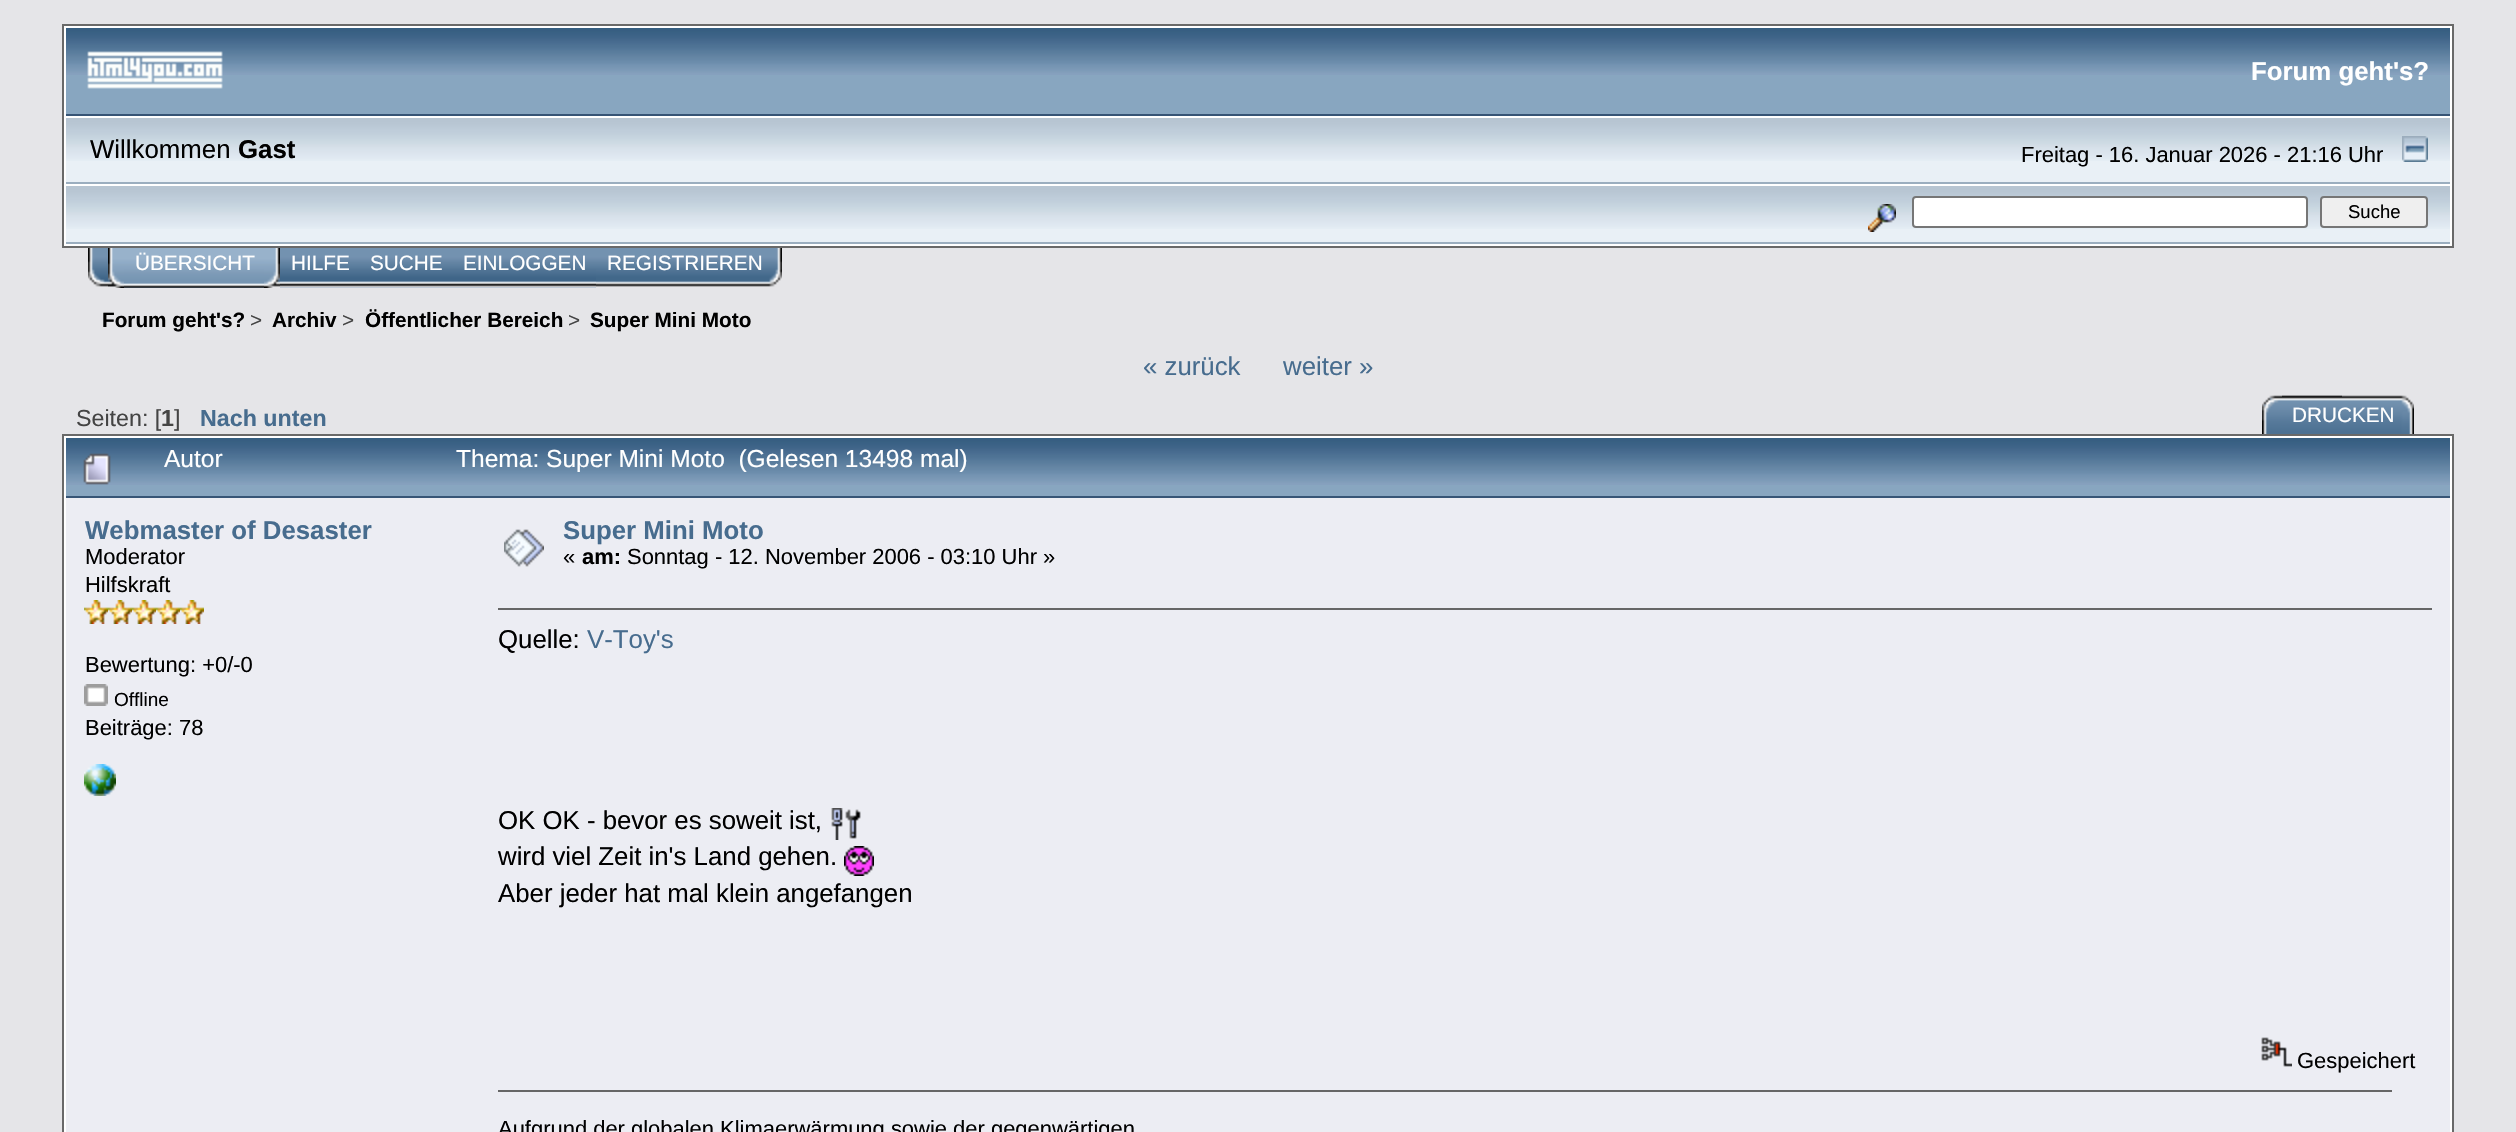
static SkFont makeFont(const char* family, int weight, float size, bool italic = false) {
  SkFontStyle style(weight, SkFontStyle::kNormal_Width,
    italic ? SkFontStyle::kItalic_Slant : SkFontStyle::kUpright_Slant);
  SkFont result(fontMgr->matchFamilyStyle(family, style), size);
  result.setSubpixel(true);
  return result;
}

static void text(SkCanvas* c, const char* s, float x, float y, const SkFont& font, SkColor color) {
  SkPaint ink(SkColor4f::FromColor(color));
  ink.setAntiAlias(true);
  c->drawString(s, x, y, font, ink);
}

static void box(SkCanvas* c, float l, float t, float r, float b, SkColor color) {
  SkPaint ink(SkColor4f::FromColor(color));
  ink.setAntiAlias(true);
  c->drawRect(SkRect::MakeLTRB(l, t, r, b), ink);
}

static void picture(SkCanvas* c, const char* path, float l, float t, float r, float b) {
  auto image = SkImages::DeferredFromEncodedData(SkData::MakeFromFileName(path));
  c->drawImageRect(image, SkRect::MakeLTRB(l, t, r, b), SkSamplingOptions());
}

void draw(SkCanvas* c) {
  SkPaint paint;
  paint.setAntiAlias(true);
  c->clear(0xffe5e5e8);
  paint.setColor(0xffffffff);
  c->drawRect(SkRect::MakeLTRB(63, 25, 2453, 247), paint);
  paint.setStyle(SkPaint::kStroke_Style);
  paint.setStrokeWidth(2);
  paint.setColor(0xff696969);
  c->drawRect(SkRect::MakeLTRB(63, 25, 2453, 247), paint);
  box(c, 66, 75, 2450, 114, 0xff88a6c0);
  picture(c, "img_01.png", 66, 28, 2450, 75);
  box(c, 66, 114, 2450, 116, 0xff375576);
  picture(c, "img_02.png", 87, 51, 223, 89);
  SkFont face1 = makeFont("Liberation Sans", 700, 25.8f);
  text(c, "Forum geht's?", 2251, 80, face1, 0xffffffff);
  box(c, 66, 161, 2450, 182, 0xffe9f0f6);
  picture(c, "img_03.png", 66, 118, 2450, 161);
  box(c, 66, 182, 2450, 184, 0xff9baebf);
  SkFont face2 = makeFont("Liberation Sans", 400, 25.8f);
  text(c, "Willkommen", 90, 158, face2, 0xff000000);
  text(c, "Gast", 238, 158, face1, 0xff000000);
  SkFont face3 = makeFont("Liberation Sans", 400, 21.95f);
  text(c, "Freitag - 16. Januar 2026 - 21:16 Uhr", 2021, 162, face3, 0xff000000);
  picture(c, "img_04.png", 2402, 136, 2428, 162);
  box(c, 66, 229, 2450, 242, 0xffe9f0f6);
  picture(c, "img_03.png", 66, 186, 2450, 229);
  box(c, 66, 242, 2450, 244, 0xff9baebf);
  picture(c, "img_05.png", 1868, 204, 1896, 232);
  paint.setStyle(SkPaint::kFill_Style);
  paint.setColor(0xffffffff);
  c->drawRoundRect(SkRect::MakeLTRB(1913, 197, 2307, 227), 3, 3, paint);
  paint.setStyle(SkPaint::kStroke_Style);
  paint.setColor(0xff767676);
  c->drawRoundRect(SkRect::MakeLTRB(1913, 197, 2307, 227), 3, 3, paint);
  paint.setStyle(SkPaint::kFill_Style);
  paint.setColor(0xffefefef);
  c->drawRoundRect(SkRect::MakeLTRB(2321, 197, 2427, 227), 3, 3, paint);
  paint.setStyle(SkPaint::kStroke_Style);
  paint.setColor(0xff767676);
  c->drawRoundRect(SkRect::MakeLTRB(2321, 197, 2427, 227), 3, 3, paint);
  SkFont face4 = makeFont("Liberation Sans", 400, 18.5f);
  text(c, "Suche", 2348, 218, face4, 0xff000000);
  picture(c, "img_06.png", 88, 248, 117, 287);
  picture(c, "img_07.png", 264, 248, 280, 288);
  picture(c, "img_08.png", 108, 248, 124, 288);
  picture(c, "img_09.png", 124, 248, 264, 288);
  SkFont face5 = makeFont("Liberation Sans", 400, 20.75f);
  text(c, "ÜBERSICHT", 135, 270, face5, 0xffffffff);
  picture(c, "img_10.png", 280, 248, 360, 288);
  text(c, "HILFE", 291, 270, face5, 0xffffffff);
  picture(c, "img_11.png", 360, 248, 452, 288);
  text(c, "SUCHE", 370, 270, face5, 0xffffffff);
  picture(c, "img_12.png", 452, 248, 596, 288);
  text(c, "EINLOGGEN", 463, 270, face5, 0xffffffff);
  picture(c, "img_13.png", 596, 248, 782, 287);
  text(c, "REGISTRIEREN", 607, 270, face5, 0xffffffff);
  SkFont face6 = makeFont("Liberation Sans", 700, 20.75f);
  text(c, "Forum geht's?", 102, 327, face6, 0xff000000);
  text(c, ">", 250, 327, face5, 0xff444444);
  text(c, "Archiv", 272, 327, face6, 0xff000000);
  text(c, ">", 342, 327, face5, 0xff444444);
  text(c, "Öffentlicher Bereich", 365, 327, face6, 0xff000000);
  text(c, ">", 568, 327, face5, 0xff444444);
  text(c, "Super Mini Moto", 590, 327, face6, 0xff000000);
  text(c, "« zurück", 1143, 375, face2, 0xff476c8e);
  text(c, "weiter »", 1283, 375, face2, 0xff476c8e);
  SkFont face7 = makeFont("Liberation Sans", 400, 23.25f);
  text(c, "Seiten: [", 76, 426, face7, 0xff444444);
  SkFont face8 = makeFont("Liberation Sans", 700, 23.25f);
  text(c, "1", 161, 426, face8, 0xff444444);
  text(c, "]", 174, 426, face7, 0xff444444);
  text(c, "Nach unten", 200, 426, face8, 0xff476c8e);
  picture(c, "img_14.png", 2262, 395, 2342, 434);
  picture(c, "img_15.png", 2282, 395, 2414, 434);
  text(c, "DRUCKEN", 2292, 422, face5, 0xffffffff);
  paint.setStyle(SkPaint::kFill_Style);
  paint.setColor(0xffffffff);
  c->drawRect(SkRect::MakeLTRB(63, 435, 2453, 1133), paint);
  paint.setStyle(SkPaint::kStroke_Style);
  paint.setColor(0xff696969);
  c->drawRect(SkRect::MakeLTRB(63, 435, 2453, 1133), paint);
  box(c, 66, 485, 2450, 496, 0xff88a6c0);
  picture(c, "img_01.png", 66, 438, 2450, 485);
  box(c, 66, 496, 2450, 498, 0xff375576);
  picture(c, "img_16.png", 83, 453, 111, 485);
  SkFont face9 = makeFont("Liberation Sans", 400, 24.55f);
  text(c, "Autor", 164, 467, face9, 0xffffffff);
  text(c, "Thema: Super Mini Moto  (Gelesen 13498 mal)", 456, 467, face9, 0xffffffff);
  box(c, 66, 498, 2450, 1132, 0xffecedf3);
  text(c, "Webmaster of Desaster", 85, 539, face1, 0xff476c8e);
  text(c, "Moderator", 85, 564, face3, 0xff000000);
  text(c, "Hilfskraft", 85, 592, face3, 0xff000000);
  picture(c, "img_17.png", 84, 600, 108, 624);
  picture(c, "img_17.png", 108, 600, 132, 624);
  picture(c, "img_17.png", 132, 600, 156, 624);
  picture(c, "img_17.png", 156, 600, 180, 624);
  picture(c, "img_17.png", 180, 600, 204, 624);
  text(c, "Bewertung: +0/-0", 85, 672, face3, 0xff000000);
  picture(c, "img_18.png", 84, 684, 108, 706);
  SkFont face10 = makeFont("Liberation Sans", 400, 19);
  text(c, "Offline", 114, 706, face10, 0xff000000);
  text(c, "Beiträge: 78", 85, 735, face3, 0xff000000);
  picture(c, "img_19.png", 84, 764, 116, 796);
  picture(c, "img_20.png", 504, 529, 544, 567);
  text(c, "Super Mini Moto", 563, 539, face1, 0xff476c8e);
  text(c, "«", 563, 564, face3, 0xff000000);
  SkFont face11 = makeFont("Liberation Sans", 700, 21.95f);
  text(c, "am:", 582, 564, face11, 0xff000000);
  text(c, "Sonntag - 12. November 2006 - 03:10 Uhr »", 627, 564, face3, 0xff000000);
  box(c, 498, 608, 2432, 610, 0xff666666);
  text(c, "Quelle:", 498, 648, face2, 0xff000000);
  text(c, "V-Toy's", 587, 648, face2, 0xff476c8e);
  text(c, "OK OK - bevor es soweit ist,", 498, 829, face2, 0xff000000);
  picture(c, "img_21.png", 831, 808, 861, 840);
  text(c, "wird viel Zeit in's Land gehen.", 498, 865, face2, 0xff000000);
  picture(c, "img_22.png", 844, 846, 874, 876);
  text(c, "Aber jeder hat mal klein angefangen", 498, 902, face2, 0xff000000);
  picture(c, "img_23.png", 2261, 1037, 2292, 1067);
  text(c, "Gespeichert", 2297, 1068, face3, 0xff000000);
  box(c, 498, 1090, 2392, 1092, 0xff666666);
  text(c, "Aufgrund der globalen Klimaerwärmung sowie der gegenwärtigen", 498, 1136, face3, 0xff000000);
}
